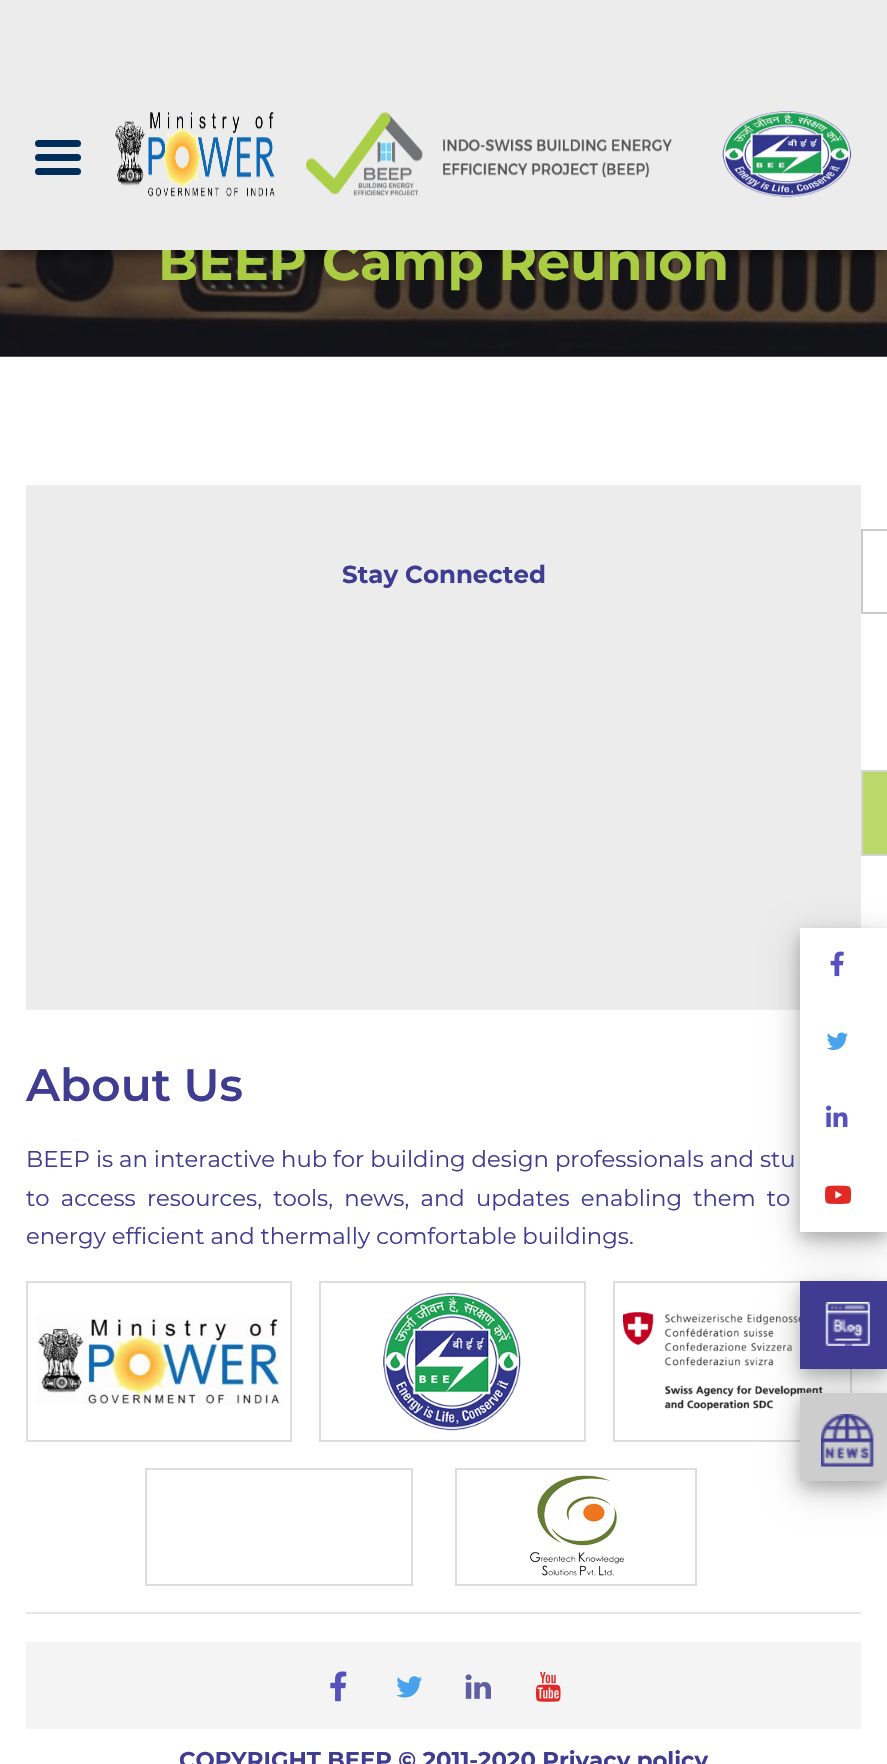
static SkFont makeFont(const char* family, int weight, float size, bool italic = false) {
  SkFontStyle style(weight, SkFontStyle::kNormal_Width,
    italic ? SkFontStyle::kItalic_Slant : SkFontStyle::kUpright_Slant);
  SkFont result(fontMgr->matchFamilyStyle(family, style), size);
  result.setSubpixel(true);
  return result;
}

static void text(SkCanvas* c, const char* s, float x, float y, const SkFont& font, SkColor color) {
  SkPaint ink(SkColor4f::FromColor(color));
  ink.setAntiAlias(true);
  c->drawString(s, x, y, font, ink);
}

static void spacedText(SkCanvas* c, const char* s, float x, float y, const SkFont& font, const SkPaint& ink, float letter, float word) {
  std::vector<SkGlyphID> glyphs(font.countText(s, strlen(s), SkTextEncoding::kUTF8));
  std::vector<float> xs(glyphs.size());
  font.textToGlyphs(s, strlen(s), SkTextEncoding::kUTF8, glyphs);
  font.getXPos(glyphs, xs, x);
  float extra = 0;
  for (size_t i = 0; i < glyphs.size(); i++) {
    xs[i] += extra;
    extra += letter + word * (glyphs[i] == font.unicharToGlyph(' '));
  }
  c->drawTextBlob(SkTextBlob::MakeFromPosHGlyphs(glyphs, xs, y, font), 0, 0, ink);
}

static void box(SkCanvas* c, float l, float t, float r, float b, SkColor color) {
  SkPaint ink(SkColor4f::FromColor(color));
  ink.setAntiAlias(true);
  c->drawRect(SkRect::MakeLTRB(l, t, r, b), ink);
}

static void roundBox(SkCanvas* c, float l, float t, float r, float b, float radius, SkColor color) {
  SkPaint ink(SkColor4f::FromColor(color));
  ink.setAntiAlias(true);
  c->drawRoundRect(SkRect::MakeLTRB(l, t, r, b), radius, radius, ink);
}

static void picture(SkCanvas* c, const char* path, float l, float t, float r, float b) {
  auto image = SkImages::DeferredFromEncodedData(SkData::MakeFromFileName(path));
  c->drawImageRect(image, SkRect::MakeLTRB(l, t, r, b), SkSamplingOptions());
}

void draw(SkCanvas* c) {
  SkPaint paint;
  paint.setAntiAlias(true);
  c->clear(0xffffffff);
  picture(c, "img_04.png", 0, 250, 887, 357);
  paint.setColor(0x66000000);
  paint.setMaskFilter(SkMaskFilter::MakeBlur(kNormal_SkBlurStyle, 4.5f));
  c->drawRect(SkRect::MakeLTRB(4, 12, 884, 256), paint);
  paint.setMaskFilter(nullptr);
  SkFont face1 = makeFont("Montserrat", 700, 52.5f);
  text(c, "BEEP Camp Reunion", 158, 280, face1, 0xffa9cc42);
  box(c, 0, 0, 887, 250, 0xffececec);
  roundBox(c, 35, 154, 81, 161, 3.5f, 0xff002e5b);
  roundBox(c, 35, 140, 81, 147, 3.5f, 0xff002e5b);
  roundBox(c, 35, 168, 81, 175, 3.5f, 0xff002e5b);
  picture(c, "img_01.png", 115, 111, 275, 197);
  picture(c, "img_02.png", 306, 112, 672, 196);
  picture(c, "img_03.png", 722, 111, 852, 198);
  box(c, 26, 485, 861, 1010, 0xffececec);
  SkFont face2 = makeFont("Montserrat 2", 700, 24.5f);
  text(c, "Stay Connected", 342, 583, face2, 0xff403c91);
  paint.setStyle(SkPaint::kStroke_Style);
  paint.setStrokeWidth(2);
  paint.setColor(0xffcacaca);
  c->drawRect(SkRect::MakeLTRB(862, 530, 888, 613), paint);
  paint.setStyle(SkPaint::kFill_Style);
  paint.setColor(0xffb9d96a);
  c->drawRect(SkRect::MakeLTRB(862, 771, 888, 855), paint);
  paint.setStyle(SkPaint::kStroke_Style);
  paint.setColor(0xffd5d5d5);
  c->drawRect(SkRect::MakeLTRB(862, 771, 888, 855), paint);
  paint.setColor(0xffdddddd);
  c->drawRect(SkRect::MakeLTRB(614, 1282, 851, 1441), paint);
  paint.setStyle(SkPaint::kFill_Style);
  paint.setColor(0x30000000);
  paint.setMaskFilter(SkMaskFilter::MakeBlur(kNormal_SkBlurStyle, 17.5f));
  c->drawRect(SkRect::MakeLTRB(800, 938, 887, 1243), paint);
  paint.setMaskFilter(nullptr);
  paint.setColor(0x33000000);
  paint.setMaskFilter(SkMaskFilter::MakeBlur(kNormal_SkBlurStyle, 7));
  c->drawRect(SkRect::MakeLTRB(800, 935, 887, 1239), paint);
  paint.setMaskFilter(nullptr);
  box(c, 800, 928, 887, 1232, 0xffffffff);
  picture(c, "img_05.png", 830, 951, 844, 977);
  picture(c, "img_06.png", 826, 1032, 848, 1050);
  picture(c, "img_07.png", 826, 1105, 848, 1127);
  picture(c, "img_08.png", 824, 1185, 852, 1204);
  picture(c, "img_13.png", 623, 1312, 842, 1411);
  paint.setColor(0x30000000);
  paint.setMaskFilter(SkMaskFilter::MakeBlur(kNormal_SkBlurStyle, 17.5f));
  c->drawRect(SkRect::MakeLTRB(800, 1292, 887, 1379), paint);
  paint.setMaskFilter(nullptr);
  paint.setColor(0x33000000);
  paint.setMaskFilter(SkMaskFilter::MakeBlur(kNormal_SkBlurStyle, 7));
  c->drawRect(SkRect::MakeLTRB(800, 1288, 887, 1376), paint);
  paint.setMaskFilter(nullptr);
  box(c, 800, 1281, 887, 1369, 0xff403c91);
  picture(c, "img_09.png", 825, 1302, 870, 1346);
  paint.setColor(0x30000000);
  paint.setMaskFilter(SkMaskFilter::MakeBlur(kNormal_SkBlurStyle, 17.5f));
  c->drawRect(SkRect::MakeLTRB(800, 1404, 887, 1491), paint);
  paint.setMaskFilter(nullptr);
  paint.setColor(0x33000000);
  paint.setMaskFilter(SkMaskFilter::MakeBlur(kNormal_SkBlurStyle, 7));
  c->drawRect(SkRect::MakeLTRB(800, 1400, 887, 1488), paint);
  paint.setMaskFilter(nullptr);
  box(c, 800, 1393, 887, 1481, 0xffcdcdcd);
  picture(c, "img_10.png", 821, 1414, 874, 1467);
  SkFont face3 = makeFont("Montserrat", 600, 45.5f);
  text(c, "About Us", 26, 1101, face3, 0xff403c91);
  SkFont face4 = makeFont("Montserrat", 400, 22.75f);
  text(c, "BEEP is an interactive hub for building design professionals and stu", 26, 1167, face4, 0xff403c91);
  paint.setColor(0xff403c91);
  spacedText(c, "to access resources, tools, news, and updates enabling them to", 26, 1206, face4, paint, 0, 5.25f);
  text(c, "energy efficient and thermally comfortable buildings.", 26, 1244, face4, 0xff403c91);
  paint.setStyle(SkPaint::kStroke_Style);
  paint.setColor(0xffdddddd);
  c->drawRect(SkRect::MakeLTRB(27, 1282, 291, 1441), paint);
  picture(c, "img_11.png", 37, 1317, 282, 1405);
  c->drawRect(SkRect::MakeLTRB(320, 1282, 585, 1441), paint);
  picture(c, "img_12.png", 383, 1292, 521, 1431);
  c->drawRect(SkRect::MakeLTRB(146, 1469, 412, 1585), paint);
  c->drawRect(SkRect::MakeLTRB(456, 1469, 696, 1585), paint);
  picture(c, "img_14.png", 530, 1475, 624, 1576);
  box(c, 26, 1612, 861, 1614, 0xffe6e6e6);
  box(c, 26, 1642, 861, 1729, 0xfff4f4f4);
  picture(c, "img_15.png", 330, 1671, 347, 1702);
  picture(c, "img_16.png", 396, 1676, 423, 1698);
  picture(c, "img_17.png", 465, 1674, 491, 1699);
  picture(c, "img_18.png", 535, 1672, 561, 1702);
  SkFont face5 = makeFont("Montserrat", 700, 22.75f);
  text(c, "COPYRIGHT BEEP © 2011-2020 Privacy policy", 179, 1768, face5, 0xff403c91);
}
